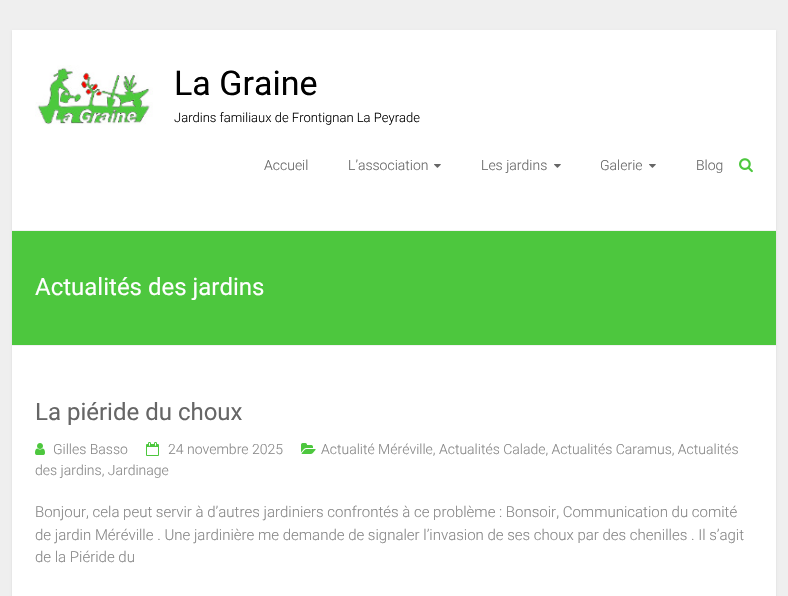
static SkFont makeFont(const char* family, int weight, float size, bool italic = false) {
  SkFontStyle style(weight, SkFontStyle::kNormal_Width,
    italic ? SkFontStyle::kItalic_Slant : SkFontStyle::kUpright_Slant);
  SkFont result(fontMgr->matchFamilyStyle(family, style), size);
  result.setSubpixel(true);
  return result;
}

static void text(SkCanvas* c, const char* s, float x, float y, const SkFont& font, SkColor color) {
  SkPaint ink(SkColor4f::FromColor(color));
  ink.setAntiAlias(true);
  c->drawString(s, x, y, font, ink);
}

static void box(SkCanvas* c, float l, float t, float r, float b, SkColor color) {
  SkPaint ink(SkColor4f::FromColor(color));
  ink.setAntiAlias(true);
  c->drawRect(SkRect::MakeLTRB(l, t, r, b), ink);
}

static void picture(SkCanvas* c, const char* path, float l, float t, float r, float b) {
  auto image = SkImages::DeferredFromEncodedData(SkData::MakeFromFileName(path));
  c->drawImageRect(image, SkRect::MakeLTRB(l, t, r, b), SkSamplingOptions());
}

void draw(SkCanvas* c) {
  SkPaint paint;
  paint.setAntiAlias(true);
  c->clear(0xffefefef);
  paint.setColor(0x1a000000);
  paint.setMaskFilter(SkMaskFilter::MakeBlur(kNormal_SkBlurStyle, 1));
  c->drawRect(SkRect::MakeLTRB(12, 31, 776, 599), paint);
  paint.setMaskFilter(nullptr);
  box(c, 12, 30, 776, 596, 0xffffffff);
  box(c, 12, 230, 776, 231, 0xfff2f2f2);
  picture(c, "img_01.png", 35, 65, 153, 125);
  SkFont face1 = makeFont("Roboto", 400, 34);
  text(c, "La Graine", 174, 95, face1, 0xff000000);
  SkFont face2 = makeFont("Roboto", 300, 13);
  text(c, "Jardins familiaux de Frontignan La Peyrade", 174, 122, face2, 0xff000000);
  SkFont face3 = makeFont("Roboto", 300, 14);
  text(c, "Accueil", 264, 170, face3, 0xff666666);
  text(c, "L’association", 348, 170, face3, 0xff666666);
  picture(c, "img_02.png", 434, 164, 441, 168);
  text(c, "Les jardins", 481, 170, face3, 0xff666666);
  picture(c, "img_02.png", 554, 164, 561, 168);
  text(c, "Galerie", 600, 170, face3, 0xff666666);
  picture(c, "img_02.png", 649, 164, 656, 168);
  text(c, "Blog", 696, 170, face3, 0xff666666);
  picture(c, "img_03.png", 739, 158, 753, 173);
  box(c, 12, 231, 776, 345, 0xff4dc73e);
  box(c, 12, 345, 776, 346, 0xfff2f2f2);
  SkFont face4 = makeFont("Roboto", 400, 24);
  text(c, "Actualités des jardins", 35, 295, face4, 0xffffffff);
  text(c, "La piéride du choux", 35, 420, face4, 0xff666666);
  picture(c, "img_04.png", 301, 443, 316, 454);
  text(c, "Actualité Méréville, Actualités Calade, Actualités Caramus, Actualités", 321, 454, face3, 0xff888888);
  text(c, "des jardins, Jardinage", 35, 475, face3, 0xff888888);
  picture(c, "img_05.png", 35, 443, 45, 455);
  text(c, "Gilles Basso", 53, 454, face3, 0xff888888);
  picture(c, "img_06.png", 146, 442, 159, 456);
  text(c, "24 novembre 2025", 168, 454, face3, 0xff888888);
  SkFont face5 = makeFont("Roboto", 300, 15);
  text(c, "Bonjour, cela peut servir à d’autres jardiniers confrontés à ce problème : Bonsoir, Communication du comité", 35, 517, face5, 0xff888888);
  text(c, "de jardin Méréville . Une jardinière me demande de signaler l’invasion de ses choux par des chenilles . Il s’agit", 35, 540, face5, 0xff888888);
  text(c, "de la Piéride du", 35, 562, face5, 0xff888888);
}
